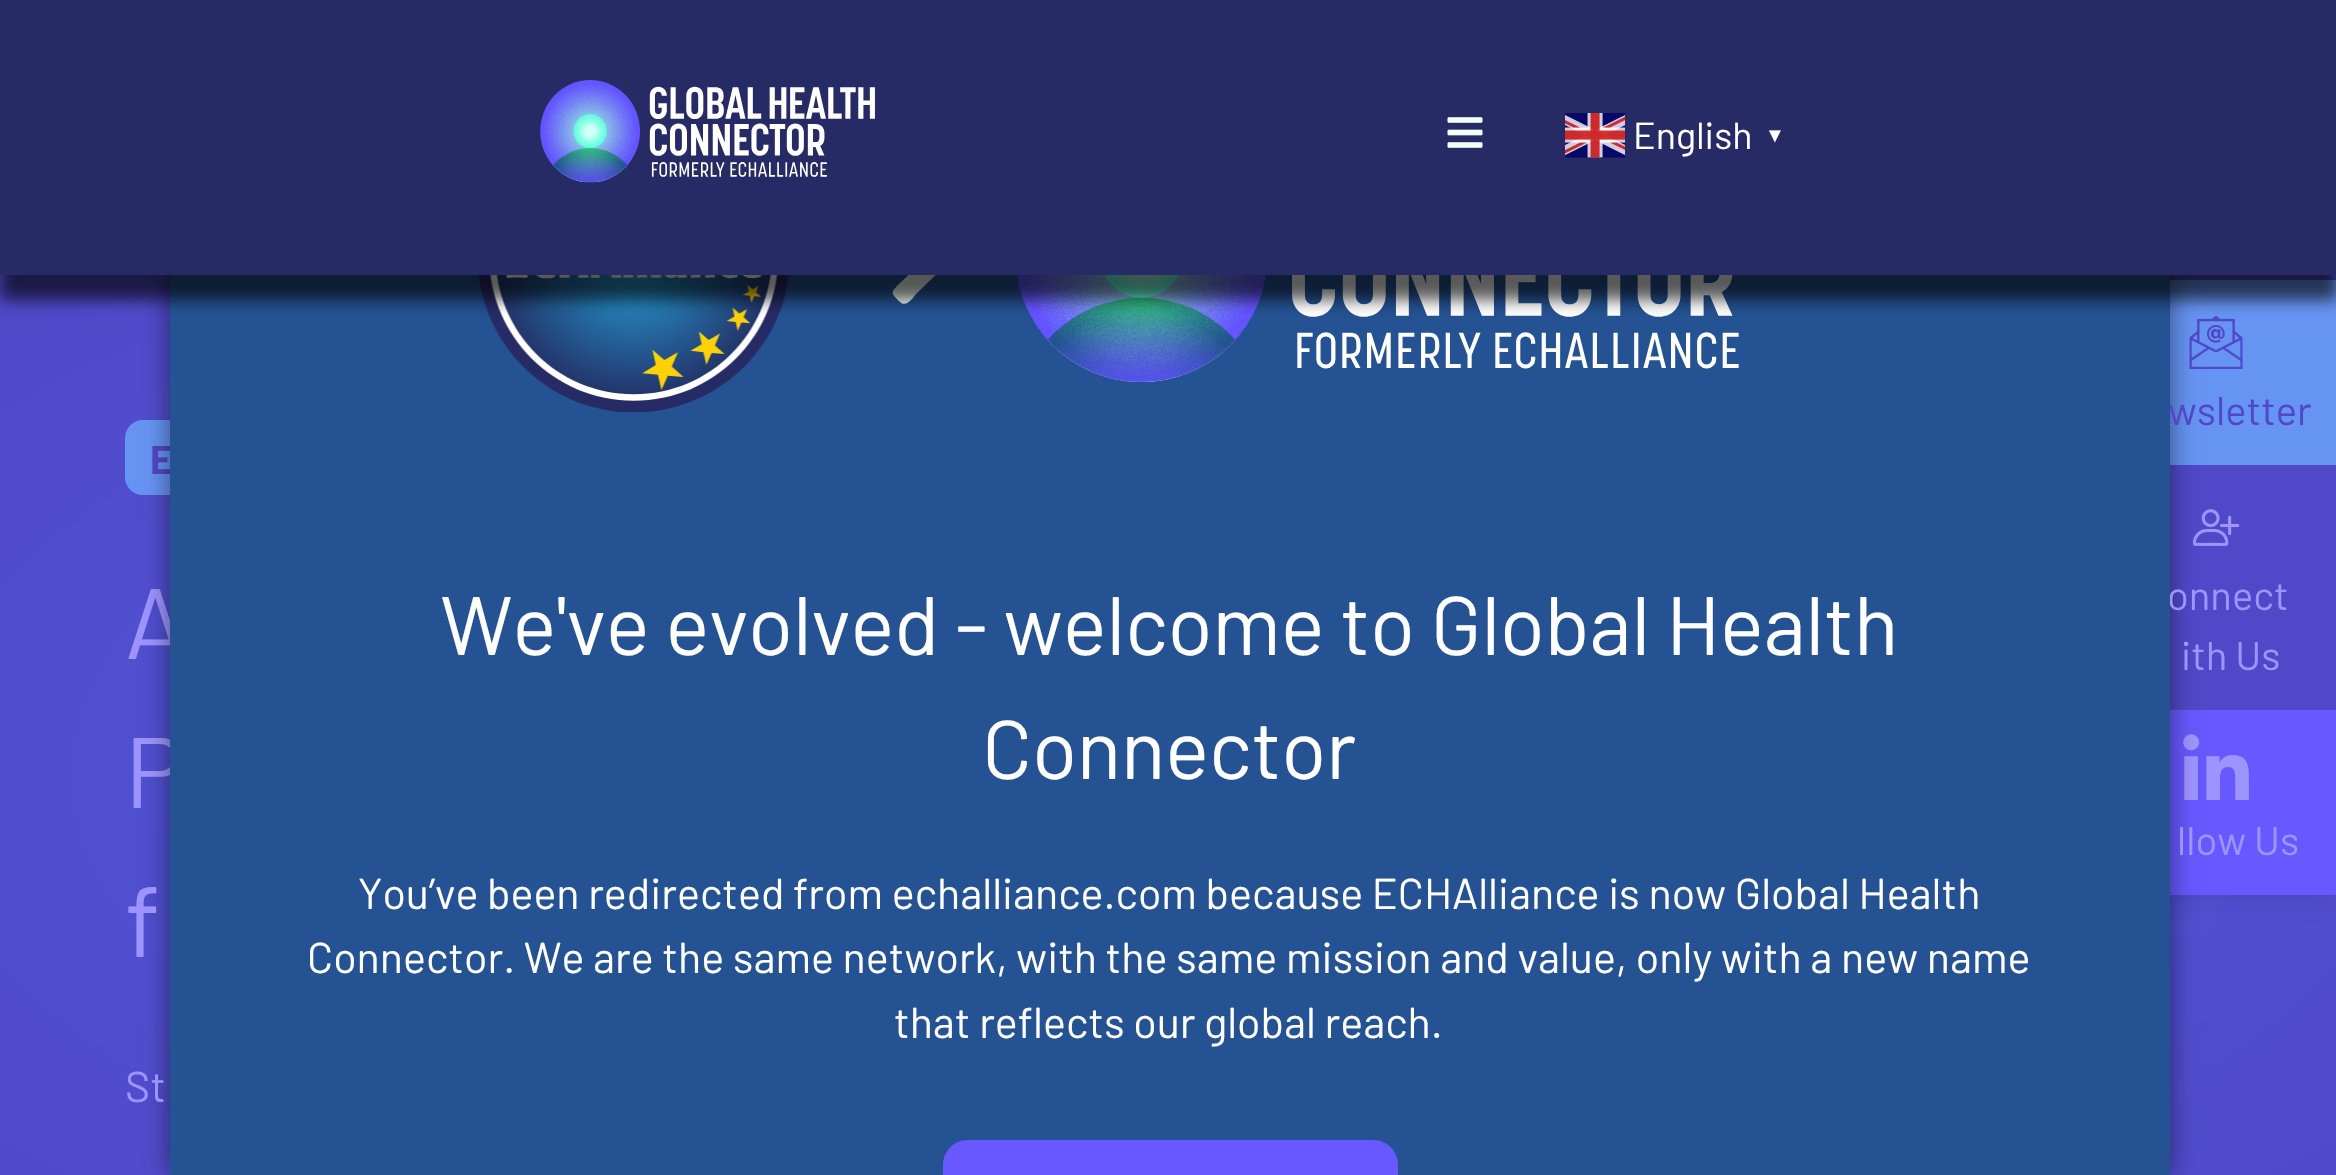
static SkFont makeFont(const char* family, int weight, float size, bool italic = false) {
  SkFontStyle style(weight, SkFontStyle::kNormal_Width,
    italic ? SkFontStyle::kItalic_Slant : SkFontStyle::kUpright_Slant);
  SkFont result(fontMgr->matchFamilyStyle(family, style), size);
  result.setSubpixel(true);
  return result;
}

static void text(SkCanvas* c, const char* s, float x, float y, const SkFont& font, SkColor color) {
  SkPaint ink(SkColor4f::FromColor(color));
  ink.setAntiAlias(true);
  c->drawString(s, x, y, font, ink);
}

static void spacedText(SkCanvas* c, const char* s, float x, float y, const SkFont& font, const SkPaint& ink, float letter, float word) {
  std::vector<SkGlyphID> glyphs(font.countText(s, strlen(s), SkTextEncoding::kUTF8));
  std::vector<float> xs(glyphs.size());
  font.textToGlyphs(s, strlen(s), SkTextEncoding::kUTF8, glyphs);
  font.getXPos(glyphs, xs, x);
  float extra = 0;
  for (size_t i = 0; i < glyphs.size(); i++) {
    xs[i] += extra;
    extra += letter + word * (glyphs[i] == font.unicharToGlyph(' '));
  }
  c->drawTextBlob(SkTextBlob::MakeFromPosHGlyphs(glyphs, xs, y, font), 0, 0, ink);
}

static void box(SkCanvas* c, float l, float t, float r, float b, SkColor color) {
  SkPaint ink(SkColor4f::FromColor(color));
  ink.setAntiAlias(true);
  c->drawRect(SkRect::MakeLTRB(l, t, r, b), ink);
}

static void roundBox(SkCanvas* c, float l, float t, float r, float b, float radius, SkColor color) {
  SkPaint ink(SkColor4f::FromColor(color));
  ink.setAntiAlias(true);
  c->drawRoundRect(SkRect::MakeLTRB(l, t, r, b), radius, radius, ink);
}

static void picture(SkCanvas* c, const char* path, float l, float t, float r, float b) {
  auto image = SkImages::DeferredFromEncodedData(SkData::MakeFromFileName(path));
  c->drawImageRect(image, SkRect::MakeLTRB(l, t, r, b), SkSamplingOptions());
}

void draw(SkCanvas* c) {
  SkPaint paint;
  paint.setAntiAlias(true);
  c->clear(0xffffffff);
  {
    const SkColor colors[] = {0xff4f56d8, 0xff5048c8};
    const float stops[] = {0.28f, 1};
    SkMatrix m = SkMatrix::Translate(1169, 775).preScale(1653, 707);
    paint.setShader(SkGradientShader::MakeRadial({0, 0}, 1, colors, stops, 2, SkTileMode::kClamp, 0, &m));
    paint.setAlpha(255);
  }
  c->drawRect(SkRect::MakeLTRB(0, 275, 2336, 1175), paint);
  roundBox(c, 125, 420, 298, 495, 18, 0xff6694f3);
  SkFont face1 = makeFont("Barlow", 700, 40);
  text(c, "E", 150, 474, face1, 0xff5048c8);
  SkFont face2 = makeFont("Barlow", 400, 100);
  text(c, "A", 125, 659, face2, 0xff9e94ff);
  text(c, "P", 125, 808, face2, 0xff9e94ff);
  paint.setShader(nullptr);
  paint.setColor(0x804238a3);
  paint.setMaskFilter(SkMaskFilter::MakeBlur(kNormal_SkBlurStyle, 12.5f));
  c->drawRect(SkRect::MakeLTRB(2090, 280, 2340, 895), paint);
  paint.setMaskFilter(nullptr);
  box(c, 2170, 710, 2336, 895, 0xff6758ff);
  box(c, 2170, 280, 2336, 465, 0xff6694f3);
  picture(c, "img_06.png", 2189, 316, 2243, 370);
  box(c, 2170, 465, 2336, 710, 0xff5048c8);
  picture(c, "img_07.png", 2192, 509, 2240, 546);
  picture(c, "img_08.png", 2183, 734, 2249, 800);
  paint.setColor(0x80000000);
  paint.setMaskFilter(SkMaskFilter::MakeBlur(kNormal_SkBlurStyle, 12.5f));
  c->drawRect(SkRect::MakeLTRB(170, 0, 2170, 1175), paint);
  paint.setMaskFilter(nullptr);
  SkFont face3 = makeFont("Barlow", 400, 40);
  text(c, "wsletter", 2168, 425, face3, 0xff5048c8);
  text(c, "onnect", 2167, 610, face3, 0xff9e94ff);
  box(c, 170, 275, 2170, 1175, 0xff245293);
  paint.setColor(0xfff2fff7);
  c->drawPath(SkPathBuilder().moveTo(894, 204).cubicTo(898, 201, 903, 194, 908, 199).lineTo(948, 239).cubicTo(960, 251, 960, 250, 948, 263).lineTo(916, 294).cubicTo(913, 298, 906, 308, 900, 302).cubicTo(891, 293, 890, 293, 899, 284).lineTo(924, 260).lineTo(865, 260).cubicTo(854, 260, 848, 263, 848, 251).cubicTo(848, 238, 852, 241, 865, 241).lineTo(924, 241).lineTo(899, 217).cubicTo(896, 215, 889, 209, 894, 204).close().detach(), paint);
  picture(c, "img_04.png", 478, 275, 790, 413);
  picture(c, "img_05.png", 1016, 275, 1739, 383);
  paint.setColor(0xa6000000);
  paint.setMaskFilter(SkMaskFilter::MakeBlur(kNormal_SkBlurStyle, 7.5f));
  c->drawRect(SkRect::MakeLTRB(0, 13, 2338, 300), paint);
  paint.setMaskFilter(nullptr);
  box(c, 0, 0, 2336, 275, 0xff272b65);
  picture(c, "img_01.png", 540, 80, 875, 183);
  picture(c, "img_02.png", 1447, 117, 1483, 148);
  picture(c, "img_03.png", 1565, 113, 1625, 158);
  SkFont face4 = makeFont("Barlow", 400, 37.5f);
  text(c, "English", 1633, 149, face4, 0xffffffff);
  SkFont face5 = makeFont("Liberation Sans", 700, 20);
  text(c, "▼", 1765, 142, face5, 0xffffffff);
  text(c, "f", 125, 957, face2, 0xff9e94ff);
  SkFont face6 = makeFont("Barlow", 400, 43.05f);
  text(c, "St", 125, 1102, face6, 0xff9e94ff);
  SkFont face7 = makeFont("Barlow", 400, 83);
  paint.setColor(0xffffffff);
  spacedText(c, "We've evolved - welcome to Global Health", 440, 655, face7, paint, -0.5f, 0);
  spacedText(c, "Connector", 982, 779, face7, paint, -0.5f, 0);
  text(c, "You’ve been redirected from echalliance.com because ECHAlliance is now Global Health", 358, 909, face6, 0xffffffff);
  text(c, "Connector. We are the same network, with the same mission and value, only with a new name", 307, 973, face6, 0xffffffff);
  text(c, "that reflects our global reach.", 894, 1038, face6, 0xffffffff);
  paint.setColor(0xff6758ff);
  c->drawPath(SkPathBuilder().moveTo(968, 1140).lineTo(1373, 1140).cubicTo(1387, 1140, 1398, 1151, 1398, 1165).lineTo(1398, 1175).lineTo(943, 1175).lineTo(943, 1165).cubicTo(943, 1151, 954, 1140, 968, 1140).close().detach(), paint);
  text(c, "ith Us", 2181, 670, face3, 0xff9e94ff);
  text(c, "llow Us", 2177, 855, face3, 0xff9e94ff);
}
